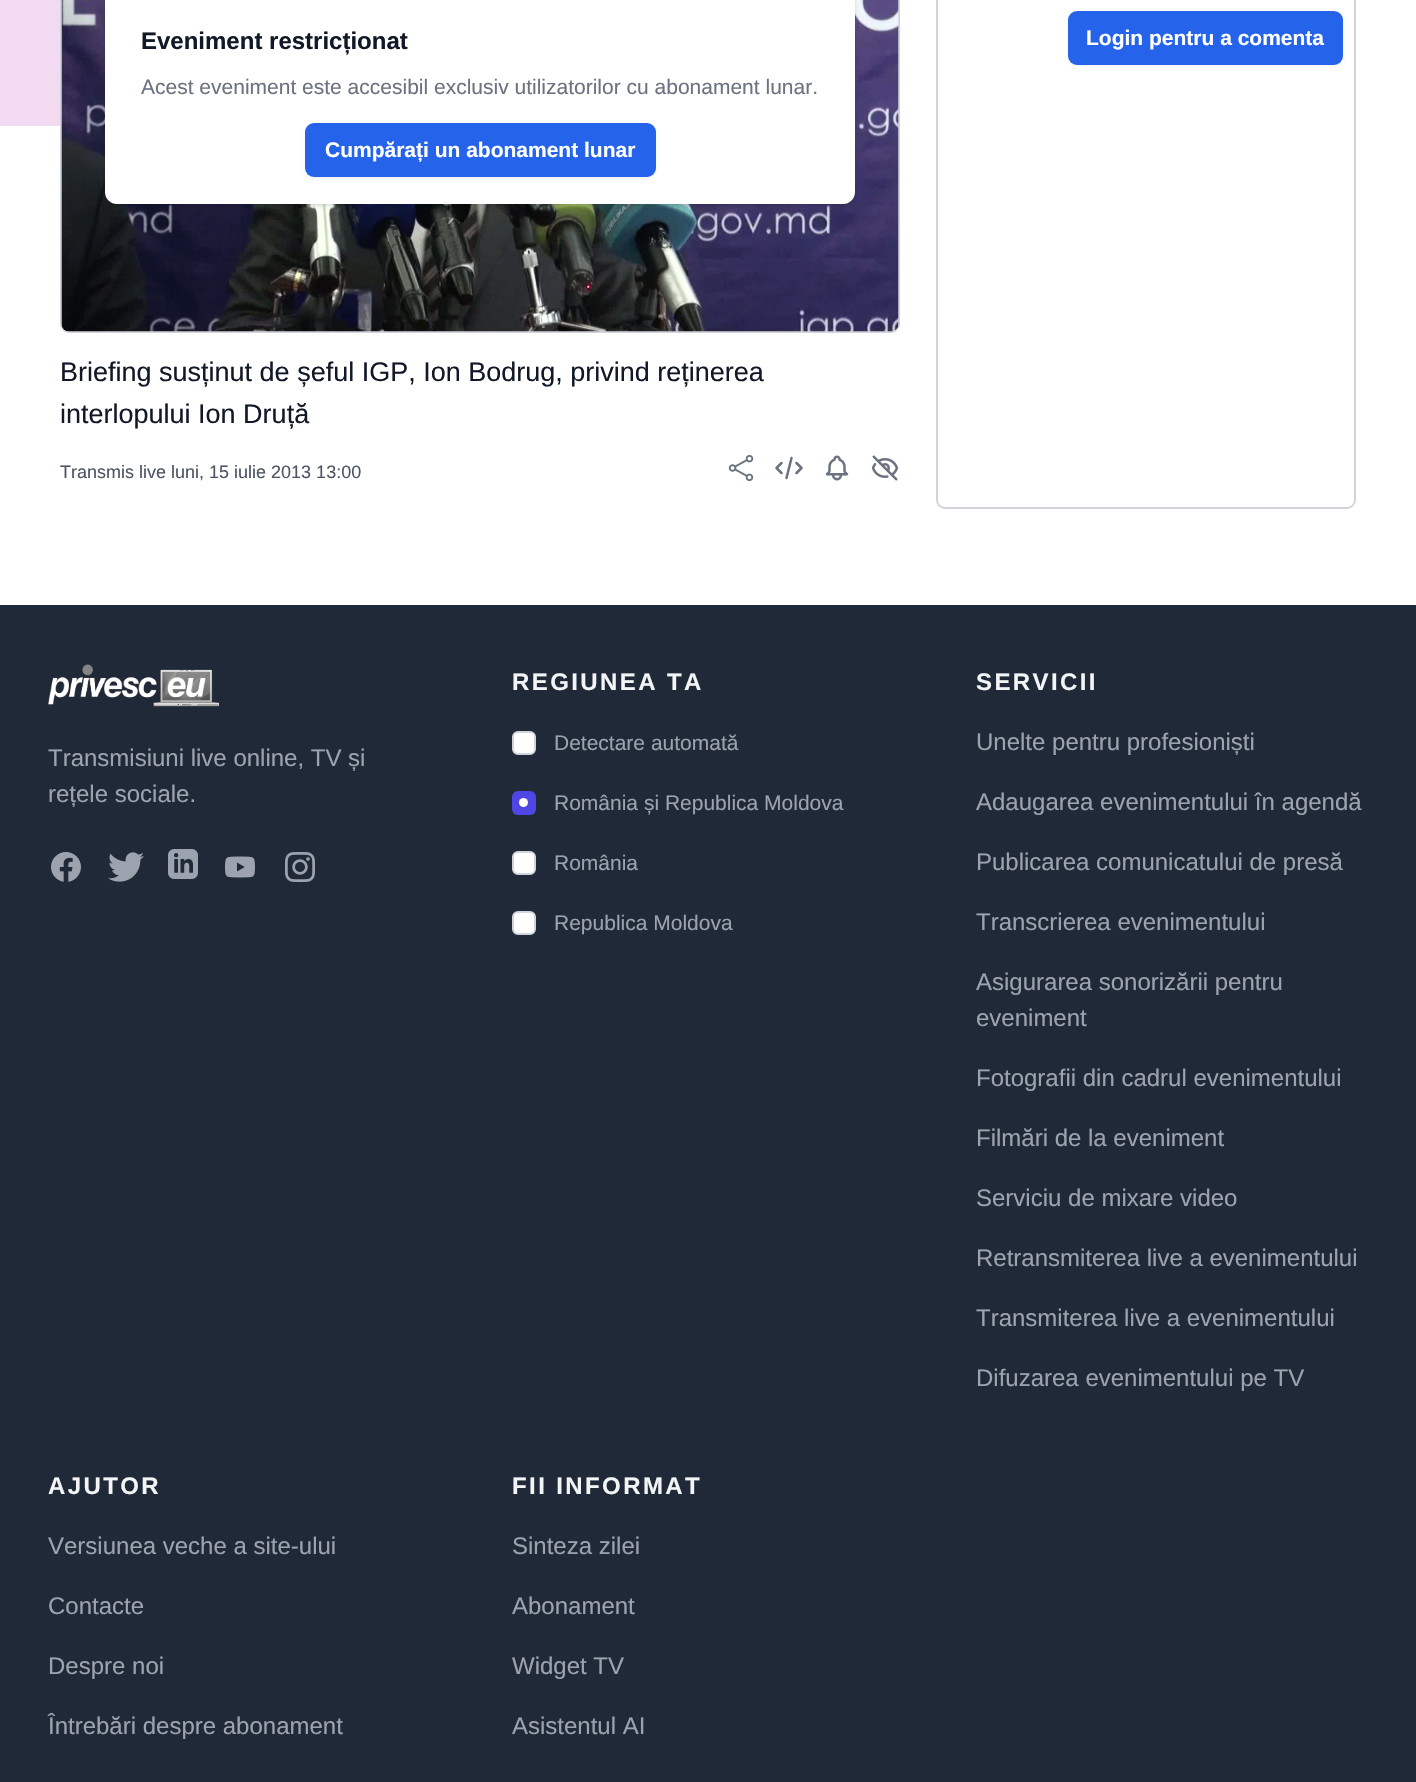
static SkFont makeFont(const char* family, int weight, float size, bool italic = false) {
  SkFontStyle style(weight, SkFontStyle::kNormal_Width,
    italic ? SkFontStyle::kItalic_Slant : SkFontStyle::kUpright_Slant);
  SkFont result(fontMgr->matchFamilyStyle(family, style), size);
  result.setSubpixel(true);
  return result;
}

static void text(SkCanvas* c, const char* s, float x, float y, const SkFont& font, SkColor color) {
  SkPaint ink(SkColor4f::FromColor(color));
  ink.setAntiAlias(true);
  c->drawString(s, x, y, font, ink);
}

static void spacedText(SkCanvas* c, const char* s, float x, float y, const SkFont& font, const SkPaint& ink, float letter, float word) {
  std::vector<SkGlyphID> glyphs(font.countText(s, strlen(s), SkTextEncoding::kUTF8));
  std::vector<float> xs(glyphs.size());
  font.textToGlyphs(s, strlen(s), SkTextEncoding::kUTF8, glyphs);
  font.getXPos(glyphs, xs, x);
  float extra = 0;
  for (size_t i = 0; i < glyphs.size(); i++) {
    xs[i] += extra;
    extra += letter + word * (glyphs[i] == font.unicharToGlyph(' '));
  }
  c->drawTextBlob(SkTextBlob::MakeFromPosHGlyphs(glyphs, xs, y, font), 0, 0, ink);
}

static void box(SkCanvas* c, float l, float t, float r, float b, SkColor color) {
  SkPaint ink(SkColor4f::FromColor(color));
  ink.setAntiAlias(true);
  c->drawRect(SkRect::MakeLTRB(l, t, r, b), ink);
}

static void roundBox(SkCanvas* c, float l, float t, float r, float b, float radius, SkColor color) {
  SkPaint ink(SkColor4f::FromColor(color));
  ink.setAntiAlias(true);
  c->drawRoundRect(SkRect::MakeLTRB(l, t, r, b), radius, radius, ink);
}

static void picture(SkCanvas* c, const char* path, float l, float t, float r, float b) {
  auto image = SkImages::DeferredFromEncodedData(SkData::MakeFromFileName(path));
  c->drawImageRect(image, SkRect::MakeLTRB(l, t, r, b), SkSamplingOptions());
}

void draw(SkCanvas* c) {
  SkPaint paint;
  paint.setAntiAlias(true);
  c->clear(0xffffffff);
  c->save();
  c->clipRect(SkRect::MakeLTRB(0, 0, 1416, 126));
  {
    const SkColor colors[] = {0xffffd9e9, 0xffdedcfe};
    const float stops[] = {0, 1};
    const SkPoint ends[] = {{-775, 51}, {751, -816}};
    paint.setShader(SkGradientShader::MakeLinear(ends, colors, stops, 2, SkTileMode::kClamp));
    paint.setAlpha(255);
  }
  c->drawPath(SkPathBuilder().moveTo(380, -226).lineTo(137, 264).lineTo(-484, -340).lineTo(-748, -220).lineTo(-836, -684).lineTo(-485, -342).lineTo(-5, -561).lineTo(-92, -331).lineTo(-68, -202).lineTo(78, -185).lineTo(415, -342).lineTo(693, -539).lineTo(774, -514).lineTo(818, -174).lineTo(679, 153).close().detach(), paint);
  c->restore();
  paint.setStyle(SkPaint::kStroke_Style);
  paint.setStrokeWidth(2);
  paint.setShader(nullptr);
  paint.setColor(0xffd1d5db);
  c->drawRoundRect(SkRect::MakeLTRB(61, -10, 899, 332), 8, 8, paint);
  picture(c, "img_01.png", 61, 0, 899, 332);
  paint.setStyle(SkPaint::kFill_Style);
  paint.setColor(0x1a000000);
  paint.setMaskFilter(SkMaskFilter::MakeBlur(kNormal_SkBlurStyle, 1.5f));
  c->drawRoundRect(SkRect::MakeLTRB(107, -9, 854, 204), 11, 11, paint);
  paint.setMaskFilter(nullptr);
  paint.setMaskFilter(SkMaskFilter::MakeBlur(kNormal_SkBlurStyle, 2));
  c->drawRoundRect(SkRect::MakeLTRB(105, -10, 855, 206), 12, 12, paint);
  paint.setMaskFilter(nullptr);
  roundBox(c, 105, -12, 855, 204, 12, 0xffffffff);
  SkFont face1 = makeFont("Liberation Sans", 700, 24);
  text(c, "Eveniment restricționat", 141, 49, face1, 0xff111827);
  SkFont face2 = makeFont("Liberation Sans", 400, 21);
  text(c, "Acest eveniment este accesibil exclusiv utilizatorilor cu abonament lunar.", 141, 94, face2, 0xff6b7280);
  paint.setColor(0x0d000000);
  paint.setMaskFilter(SkMaskFilter::MakeBlur(kNormal_SkBlurStyle, 1.5f));
  c->drawRoundRect(SkRect::MakeLTRB(305, 125, 656, 179), 9, 9, paint);
  paint.setMaskFilter(nullptr);
  roundBox(c, 305, 123, 656, 177, 9, 0xff2563eb);
  SkFont face3 = makeFont("Liberation Sans", 700, 21);
  text(c, "Cumpărați un abonament lunar", 325, 157, face3, 0xffffffff);
  SkFont face4 = makeFont("Liberation Sans", 400, 27);
  text(c, "Briefing susținut de șeful IGP, Ion Bodrug, privind reținerea", 60, 381, face4, 0xff111827);
  text(c, "interlopului Ion Druță", 60, 423, face4, 0xff111827);
  SkFont face5 = makeFont("Liberation Sans", 400, 18);
  text(c, "Transmis live luni, 15 iulie 2013 13:00", 60, 478, face5, 0xff4b5563);
  picture(c, "img_02.png", 728, 454, 754, 482);
  paint.setStyle(SkPaint::kStroke_Style);
  paint.setStrokeWidth(2.5f);
  paint.setStrokeCap(SkPaint::kRound_Cap);
  paint.setStrokeJoin(SkPaint::kRound_Join);
  paint.setColor(0xff6b7280);
  c->drawPath(SkPathBuilder().moveTo(786.5f, 478).lineTo(791.5f, 458).moveTo(796.5f, 463).lineTo(801.5f, 468).lineTo(796.5f, 473).moveTo(781.5f, 473).lineTo(776.5f, 468).lineTo(781.5f, 463).detach(), paint);
  picture(c, "img_03.png", 825, 455, 849, 481);
  picture(c, "img_04.png", 871, 455, 899, 481);
  paint.setStrokeWidth(2);
  paint.setStrokeCap(SkPaint::kButt_Cap);
  paint.setStrokeJoin(SkPaint::kMiter_Join);
  paint.setColor(0xffd1d5db);
  c->drawRoundRect(SkRect::MakeLTRB(937, -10, 1355, 508), 8, 8, paint);
  paint.setStyle(SkPaint::kFill_Style);
  paint.setColor(0x0d000000);
  paint.setMaskFilter(SkMaskFilter::MakeBlur(kNormal_SkBlurStyle, 1.5f));
  c->drawRoundRect(SkRect::MakeLTRB(1068, 12, 1343, 66), 9, 9, paint);
  paint.setMaskFilter(nullptr);
  roundBox(c, 1068, 11, 1343, 65, 9, 0xff2563eb);
  text(c, "Login pentru a comenta", 1086, 45, face3, 0xffffffff);
  box(c, 0, 605, 1416, 1782, 0xff1f2937);
  picture(c, "img_05.png", 48, 664, 219, 707);
  SkFont face6 = makeFont("Liberation Sans", 400, 24);
  text(c, "Transmisiuni live online, TV și", 48, 766, face6, 0xff9ca3af);
  text(c, "rețele sociale.", 48, 802, face6, 0xff9ca3af);
  picture(c, "img_06.png", 51, 852, 81, 882);
  picture(c, "img_07.png", 108, 852, 144, 882);
  picture(c, "img_08.png", 168, 849, 198, 879);
  picture(c, "img_09.png", 225, 856, 255, 878);
  picture(c, "img_10.png", 285, 852, 315, 882);
  paint.setColor(0xfff3f4f6);
  spacedText(c, "REGIUNEA TA", 512, 690, face1, paint, 2.4f, 0);
  paint.setColor(0xffffffff);
  c->drawRoundRect(SkRect::MakeLTRB(513, 732, 535, 754), 5, 5, paint);
  paint.setStyle(SkPaint::kStroke_Style);
  paint.setColor(0xffd1d5db);
  c->drawRoundRect(SkRect::MakeLTRB(513, 732, 535, 754), 5, 5, paint);
  text(c, "Detectare automată", 554, 750, face2, 0xff9ca3af);
  roundBox(c, 512, 791, 536, 815, 6, 0xff4f46e5);
  paint.setStyle(SkPaint::kFill_Style);
  paint.setColor(0xffffffff);
  c->drawCircle(523.5f, 802.5f, 4.5f, paint);
  text(c, "România și Republica Moldova", 554, 810, face2, 0xff9ca3af);
  c->drawRoundRect(SkRect::MakeLTRB(513, 852, 535, 874), 5, 5, paint);
  paint.setStyle(SkPaint::kStroke_Style);
  paint.setColor(0xffd1d5db);
  c->drawRoundRect(SkRect::MakeLTRB(513, 852, 535, 874), 5, 5, paint);
  text(c, "România", 554, 870, face2, 0xff9ca3af);
  paint.setStyle(SkPaint::kFill_Style);
  paint.setColor(0xffffffff);
  c->drawRoundRect(SkRect::MakeLTRB(513, 912, 535, 934), 5, 5, paint);
  paint.setStyle(SkPaint::kStroke_Style);
  paint.setColor(0xffd1d5db);
  c->drawRoundRect(SkRect::MakeLTRB(513, 912, 535, 934), 5, 5, paint);
  text(c, "Republica Moldova", 554, 930, face2, 0xff9ca3af);
  paint.setStyle(SkPaint::kFill_Style);
  paint.setColor(0xfff3f4f6);
  spacedText(c, "SERVICII", 976, 690, face1, paint, 2.4f, 0);
  text(c, "Unelte pentru profesioniști", 976, 750, face6, 0xff9ca3af);
  text(c, "Adaugarea evenimentului în agendă", 976, 810, face6, 0xff9ca3af);
  text(c, "Publicarea comunicatului de presă", 976, 870, face6, 0xff9ca3af);
  text(c, "Transcrierea evenimentului", 976, 930, face6, 0xff9ca3af);
  text(c, "Asigurarea sonorizării pentru", 976, 990, face6, 0xff9ca3af);
  text(c, "eveniment", 976, 1026, face6, 0xff9ca3af);
  text(c, "Fotografii din cadrul evenimentului", 976, 1086, face6, 0xff9ca3af);
  text(c, "Filmări de la eveniment", 976, 1146, face6, 0xff9ca3af);
  text(c, "Serviciu de mixare video", 976, 1206, face6, 0xff9ca3af);
  text(c, "Retransmiterea live a evenimentului", 976, 1266, face6, 0xff9ca3af);
  text(c, "Transmiterea live a evenimentului", 976, 1326, face6, 0xff9ca3af);
  text(c, "Difuzarea evenimentului pe TV", 976, 1386, face6, 0xff9ca3af);
  spacedText(c, "AJUTOR", 48, 1494, face1, paint, 2.4f, 0);
  text(c, "Versiunea veche a site-ului", 48, 1554, face6, 0xff9ca3af);
  text(c, "Contacte", 48, 1614, face6, 0xff9ca3af);
  text(c, "Despre noi", 48, 1674, face6, 0xff9ca3af);
  text(c, "Întrebări despre abonament", 48, 1734, face6, 0xff9ca3af);
  spacedText(c, "FII INFORMAT", 512, 1494, face1, paint, 2.4f, 0);
  text(c, "Sinteza zilei", 512, 1554, face6, 0xff9ca3af);
  text(c, "Abonament", 512, 1614, face6, 0xff9ca3af);
  text(c, "Widget TV", 512, 1674, face6, 0xff9ca3af);
  text(c, "Asistentul AI", 512, 1734, face6, 0xff9ca3af);
}
